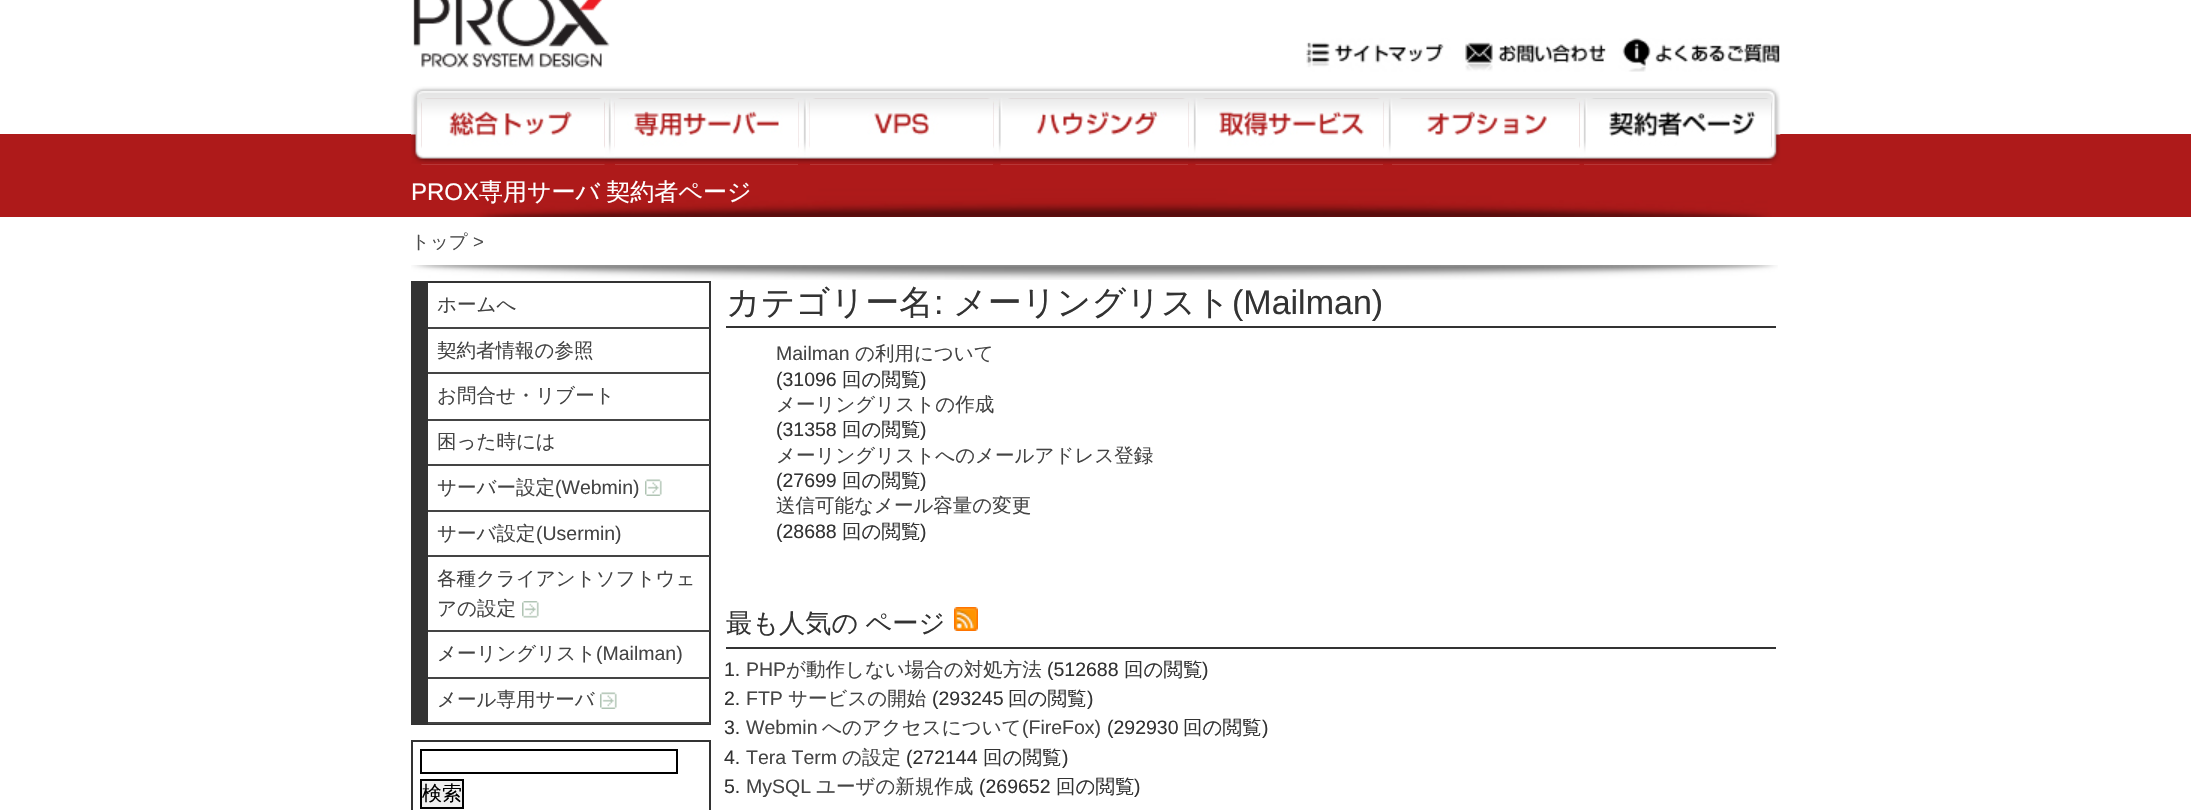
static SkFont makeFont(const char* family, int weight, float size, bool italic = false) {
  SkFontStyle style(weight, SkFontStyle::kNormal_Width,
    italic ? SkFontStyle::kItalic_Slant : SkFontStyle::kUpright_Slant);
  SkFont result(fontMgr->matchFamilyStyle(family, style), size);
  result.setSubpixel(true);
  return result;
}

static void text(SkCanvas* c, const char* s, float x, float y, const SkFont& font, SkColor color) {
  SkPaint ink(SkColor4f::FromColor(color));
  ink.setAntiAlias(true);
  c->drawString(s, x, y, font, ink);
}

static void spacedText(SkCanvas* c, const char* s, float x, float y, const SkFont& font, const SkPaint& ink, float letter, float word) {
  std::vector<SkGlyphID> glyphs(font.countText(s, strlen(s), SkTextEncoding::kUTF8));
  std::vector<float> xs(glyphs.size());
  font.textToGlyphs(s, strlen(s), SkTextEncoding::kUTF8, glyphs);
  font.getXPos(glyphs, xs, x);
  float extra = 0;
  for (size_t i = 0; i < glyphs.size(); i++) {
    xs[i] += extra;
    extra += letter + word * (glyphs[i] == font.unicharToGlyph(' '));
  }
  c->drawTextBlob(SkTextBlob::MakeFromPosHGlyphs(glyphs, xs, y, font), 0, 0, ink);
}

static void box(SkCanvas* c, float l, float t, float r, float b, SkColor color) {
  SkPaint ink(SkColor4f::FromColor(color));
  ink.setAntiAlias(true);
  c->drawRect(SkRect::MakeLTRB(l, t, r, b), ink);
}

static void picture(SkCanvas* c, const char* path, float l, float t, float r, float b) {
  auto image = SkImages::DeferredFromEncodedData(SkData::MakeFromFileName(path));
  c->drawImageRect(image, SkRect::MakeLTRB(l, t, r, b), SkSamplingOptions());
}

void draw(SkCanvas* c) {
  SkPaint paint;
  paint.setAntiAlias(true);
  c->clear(0xffffffff);
  box(c, 0, 134, 2191, 217, 0xffae1a1a);
  box(c, 411, 134, 1781, 217, 0xffffffff);
  box(c, 411, 134, 1781, 217, 0xffae1a1a);
  picture(c, "img_01.png", 411, 86, 1781, 164);
  picture(c, "img_02.png", 421, 98, 605, 165);
  picture(c, "img_03.png", 615, 98, 798, 165);
  picture(c, "img_04.png", 810, 98, 993, 165);
  picture(c, "img_05.png", 1000, 98, 1188, 165);
  picture(c, "img_06.png", 1195, 98, 1383, 165);
  picture(c, "img_07.png", 1392, 98, 1580, 165);
  picture(c, "img_08.png", 1584, 98, 1772, 165);
  picture(c, "img_09.png", 413, 0, 610, 68);
  picture(c, "img_10.png", 1306, 38, 1780, 72);
  picture(c, "img_11.png", 421, 164, 1772, 217);
  SkFont face1 = makeFont("Liberation Sans", 400, 24);
  text(c, "PROX", 411, 200, face1, 0xffffffff);
  SkFont face2 = makeFont("WenQuanYi Zen Hei", 500, 24);
  paint.setColor(0xffffffff);
  spacedText(c, "専用サーバ 契約者ページ", 479, 200, face2, paint, 0, -1);
  picture(c, "img_12.png", 411, 265, 1778, 280);
  SkFont face3 = makeFont("WenQuanYi Zen Hei", 500, 18.5f);
  text(c, "トップ", 411, 248, face3, 0xff4b4b4b);
  SkFont face4 = makeFont("Liberation Sans", 400, 18.5f);
  text(c, ">", 473, 248, face4, 0xff4b4b4b);
  paint.setStyle(SkPaint::kStroke_Style);
  paint.setStrokeWidth(2);
  paint.setColor(0xff333333);
  c->drawRect(SkRect::MakeLTRB(412, 282, 710, 724), paint);
  box(c, 413, 283, 428, 723, 0xff333333);
  box(c, 428, 327, 710, 329, 0xff444444);
  SkFont face5 = makeFont("WenQuanYi Zen Hei", 500, 19.5f);
  text(c, "ホームへ", 437, 311, face5, 0xff444444);
  box(c, 428, 372, 710, 374, 0xff444444);
  text(c, "契約者情報の参照", 437, 357, face5, 0xff444444);
  box(c, 428, 419, 710, 421, 0xff444444);
  text(c, "お問合せ・リブート", 437, 402, face5, 0xff444444);
  box(c, 428, 464, 710, 466, 0xff444444);
  text(c, "困った時には", 437, 448, face5, 0xff444444);
  box(c, 428, 510, 710, 512, 0xff444444);
  text(c, "サーバー設定", 437, 494, face5, 0xff444444);
  SkFont face6 = makeFont("Liberation Sans", 400, 19.5f);
  text(c, "(Webmin)", 555, 494, face6, 0xff444444);
  picture(c, "img_13.png", 645, 479, 662, 496);
  box(c, 428, 555, 710, 557, 0xff444444);
  text(c, "サーバ設定", 437, 540, face5, 0xff444444);
  text(c, "(Usermin)", 536, 540, face6, 0xff444444);
  box(c, 428, 630, 710, 632, 0xff444444);
  text(c, "各種クライアントソフトウェ", 437, 585, face5, 0xff444444);
  text(c, "アの設定", 437, 615, face5, 0xff444444);
  picture(c, "img_14.png", 522, 601, 539, 618);
  box(c, 428, 677, 710, 679, 0xff444444);
  text(c, "メーリングリスト", 437, 660, face5, 0xff444444);
  text(c, "(Mailman)", 596, 660, face6, 0xff444444);
  box(c, 428, 722, 710, 724, 0xff444444);
  text(c, "メール専用サーバ", 437, 706, face5, 0xff444444);
  picture(c, "img_15.png", 600, 692, 617, 709);
  c->drawRect(SkRect::MakeLTRB(412, 741, 710, 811), paint);
  paint.setColor(0xff000000);
  c->drawRect(SkRect::MakeLTRB(421, 750, 677, 773), paint);
  paint.setStyle(SkPaint::kFill_Style);
  paint.setColor(0xffefefef);
  c->drawRect(SkRect::MakeLTRB(421, 780, 463, 808), paint);
  paint.setStyle(SkPaint::kStroke_Style);
  paint.setColor(0xff000000);
  c->drawRect(SkRect::MakeLTRB(421, 780, 463, 808), paint);
  SkFont face7 = makeFont("WenQuanYi Zen Hei", 500, 20);
  text(c, "検索", 422, 800, face7, 0xff000000);
  box(c, 726, 326, 1776, 328, 0xff333333);
  SkFont face8 = makeFont("WenQuanYi Zen Hei", 500, 34);
  text(c, "カテゴリー名", 726, 314, face8, 0xff333333);
  SkFont face9 = makeFont("Liberation Sans", 400, 34);
  text(c, ":", 934, 314, face9, 0xff333333);
  text(c, "メーリングリスト", 953, 314, face8, 0xff333333);
  text(c, "(Mailman)", 1232, 314, face9, 0xff333333);
  text(c, "Mailman", 776, 360, face6, 0xff444444);
  text(c, "の利用について", 855, 360, face5, 0xff444444);
  text(c, "(31096", 776, 386, face6, 0xff333333);
  text(c, "回の閲覧", 842, 386, face5, 0xff333333);
  text(c, ")", 920, 386, face6, 0xff333333);
  text(c, "メーリングリストの作成", 776, 411, face5, 0xff444444);
  text(c, "(31358", 776, 436, face6, 0xff333333);
  text(c, "回の閲覧", 842, 436, face5, 0xff333333);
  text(c, ")", 920, 436, face6, 0xff333333);
  text(c, "メーリングリストへのメールアドレス登録", 776, 462, face5, 0xff444444);
  text(c, "(27699", 776, 487, face6, 0xff333333);
  text(c, "回の閲覧", 842, 487, face5, 0xff333333);
  text(c, ")", 920, 487, face6, 0xff333333);
  text(c, "送信可能なメール容量の変更", 776, 512, face5, 0xff444444);
  text(c, "(28688", 776, 538, face6, 0xff333333);
  text(c, "回の閲覧", 842, 538, face5, 0xff333333);
  text(c, ")", 920, 538, face6, 0xff333333);
  box(c, 726, 647, 1776, 649, 0xff333333);
  SkFont face10 = makeFont("WenQuanYi Zen Hei", 500, 26.25f);
  paint.setStyle(SkPaint::kFill_Style);
  paint.setColor(0xff333333);
  spacedText(c, "最も人気の ページ", 726, 632, face10, paint, 0, -1);
  picture(c, "img_16.png", 954, 607, 978, 631);
  text(c, "1.", 724, 676, face6, 0xff333333);
  text(c, "PHP", 746, 676, face6, 0xff444444);
  text(c, "が動作しない場合の対処方法", 786, 676, face5, 0xff444444);
  text(c, "(512688", 1047, 676, face6, 0xff333333);
  text(c, "回の閲覧", 1124, 676, face5, 0xff333333);
  text(c, ")", 1202, 676, face6, 0xff333333);
  text(c, "2.", 724, 705, face6, 0xff333333);
  text(c, "FTP", 746, 705, face6, 0xff444444);
  text(c, "サービスの開始", 788, 705, face5, 0xff444444);
  text(c, "(293245", 932, 705, face6, 0xff333333);
  text(c, "回の閲覧", 1008, 705, face5, 0xff333333);
  text(c, ")", 1087, 705, face6, 0xff333333);
  text(c, "3.", 724, 734, face6, 0xff333333);
  text(c, "Webmin", 746, 734, face6, 0xff444444);
  text(c, "へのアクセスについて", 822, 734, face5, 0xff444444);
  text(c, "(FireFox)", 1022, 734, face6, 0xff444444);
  text(c, "(292930", 1107, 734, face6, 0xff333333);
  text(c, "回の閲覧", 1183, 734, face5, 0xff333333);
  text(c, ")", 1262, 734, face6, 0xff333333);
  text(c, "4.", 724, 764, face6, 0xff333333);
  text(c, "Tera Term", 746, 764, face6, 0xff444444);
  text(c, "の設定", 842, 764, face5, 0xff444444);
  text(c, "(272144", 906, 764, face6, 0xff333333);
  text(c, "回の閲覧", 983, 764, face5, 0xff333333);
  text(c, ")", 1062, 764, face6, 0xff333333);
  text(c, "5.", 724, 793, face6, 0xff333333);
  text(c, "MySQL", 746, 793, face6, 0xff444444);
  text(c, "ユーザの新規作成", 816, 793, face5, 0xff444444);
  text(c, "(269652", 979, 793, face6, 0xff333333);
  text(c, "回の閲覧", 1056, 793, face5, 0xff333333);
  text(c, ")", 1134, 793, face6, 0xff333333);
}
